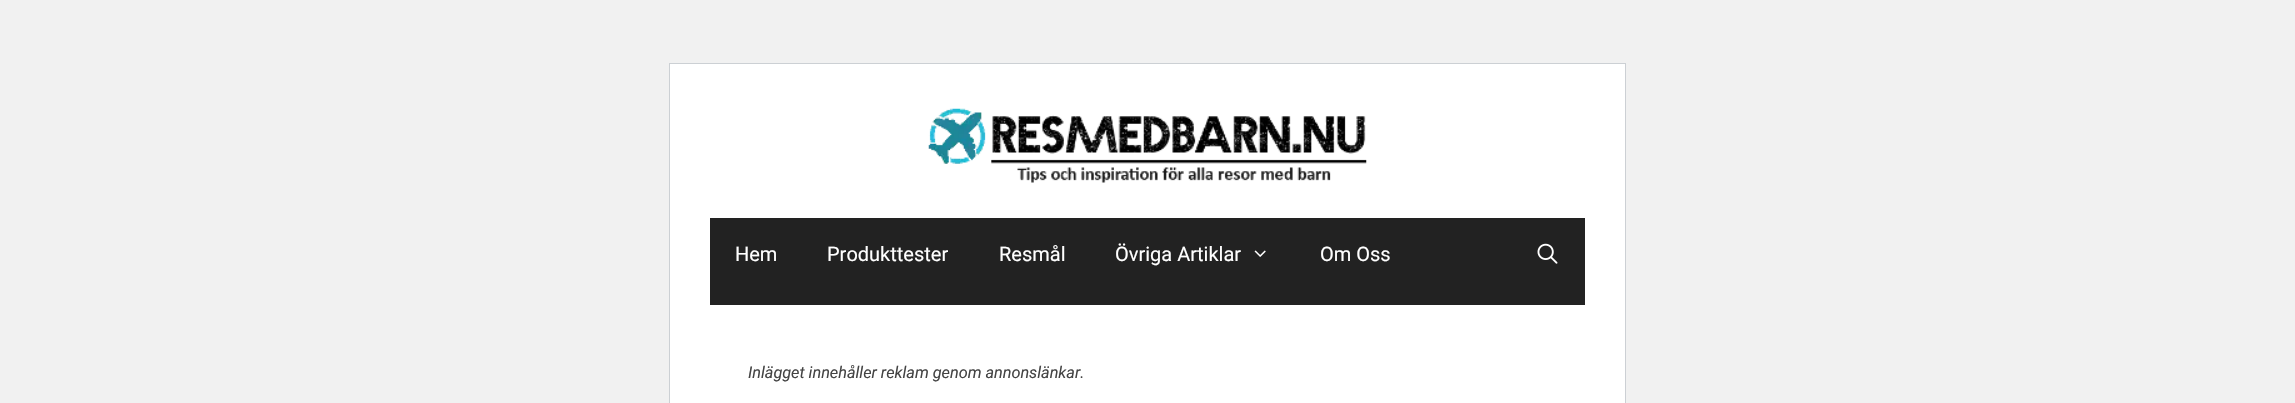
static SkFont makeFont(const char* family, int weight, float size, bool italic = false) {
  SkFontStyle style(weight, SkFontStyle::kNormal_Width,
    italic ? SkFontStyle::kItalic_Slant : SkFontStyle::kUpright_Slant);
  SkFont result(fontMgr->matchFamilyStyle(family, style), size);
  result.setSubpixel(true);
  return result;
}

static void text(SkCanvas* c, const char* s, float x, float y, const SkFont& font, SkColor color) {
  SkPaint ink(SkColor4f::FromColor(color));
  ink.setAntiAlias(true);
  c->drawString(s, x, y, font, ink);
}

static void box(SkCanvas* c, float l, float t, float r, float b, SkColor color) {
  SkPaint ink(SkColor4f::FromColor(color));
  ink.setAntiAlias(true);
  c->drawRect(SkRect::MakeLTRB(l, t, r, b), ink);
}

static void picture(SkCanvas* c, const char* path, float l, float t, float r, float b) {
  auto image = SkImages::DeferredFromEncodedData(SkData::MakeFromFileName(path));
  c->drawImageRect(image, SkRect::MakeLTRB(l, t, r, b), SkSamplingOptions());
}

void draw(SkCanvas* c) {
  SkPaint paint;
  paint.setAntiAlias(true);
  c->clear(0xfff1f1f1);
  paint.setColor(0xffffffff);
  c->drawRect(SkRect::MakeLTRB(669.5f, 63.5f, 1625.5f, 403.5f), paint);
  paint.setStyle(SkPaint::kStroke_Style);
  paint.setStrokeWidth(1);
  paint.setColor(0xffccd0d4);
  c->drawRect(SkRect::MakeLTRB(669.5f, 63.5f, 1625.5f, 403.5f), paint);
  picture(c, "img_01.png", 928, 108, 1367, 183);
  box(c, 710, 218, 1585, 305, 0xff222222);
  SkFont face1 = makeFont("Roboto", 400, 20);
  text(c, "Hem", 735, 261, face1, 0xffffffff);
  text(c, "Produkttester", 827, 261, face1, 0xffffffff);
  text(c, "Resmål", 999, 261, face1, 0xffffffff);
  text(c, "Övriga Artiklar", 1115, 261, face1, 0xffffffff);
  picture(c, "img_02.png", 1254, 250, 1266, 257);
  text(c, "Om Oss", 1320, 261, face1, 0xffffffff);
  picture(c, "img_03.png", 1537, 243, 1558, 264);
  SkFont face2 = makeFont("Roboto", 400, 16.25f, true);
  text(c, "Inlägget innehåller reklam genom annonslänkar.", 748, 378, face2, 0xff444444);
}
